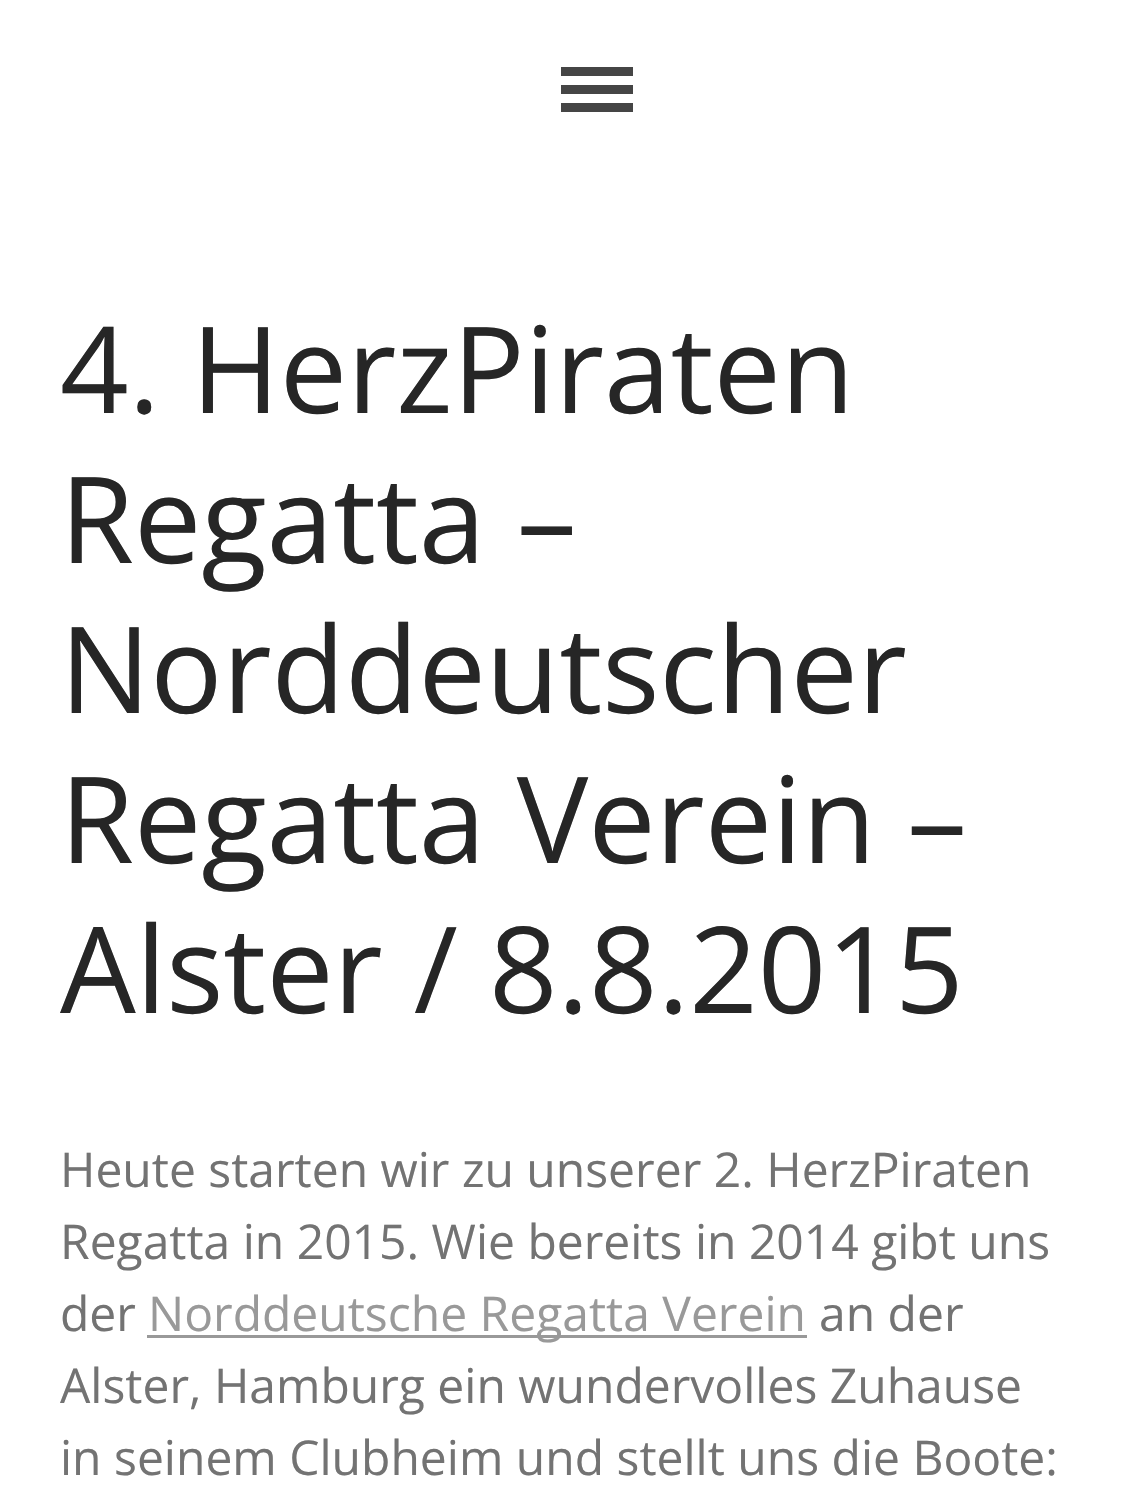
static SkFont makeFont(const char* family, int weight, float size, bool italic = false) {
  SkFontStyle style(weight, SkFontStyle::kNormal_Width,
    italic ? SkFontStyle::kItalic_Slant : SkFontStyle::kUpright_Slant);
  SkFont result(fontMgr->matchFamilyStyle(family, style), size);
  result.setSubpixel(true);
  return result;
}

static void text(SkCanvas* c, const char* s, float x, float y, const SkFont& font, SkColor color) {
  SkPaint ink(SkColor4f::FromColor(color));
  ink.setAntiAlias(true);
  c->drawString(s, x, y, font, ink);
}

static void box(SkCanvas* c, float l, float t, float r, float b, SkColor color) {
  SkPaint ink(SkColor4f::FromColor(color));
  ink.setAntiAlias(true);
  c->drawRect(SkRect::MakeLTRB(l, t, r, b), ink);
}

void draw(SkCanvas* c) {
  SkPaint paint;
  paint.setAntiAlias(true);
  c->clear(0xffffffff);
  paint.setColor(0xff454545);
  c->drawPath(SkPathBuilder().moveTo(561, 67).lineTo(561, 76).lineTo(633, 76).lineTo(633, 67).close().moveTo(561, 85).lineTo(561, 94).lineTo(633, 94).lineTo(633, 85).close().moveTo(561, 103).lineTo(561, 112).lineTo(633, 112).lineTo(633, 103).close().detach(), paint);
  SkFont face1 = makeFont("Open Sans", 400, 120);
  text(c, "4. HerzPiraten", 60, 413, face1, 0xff262626);
  text(c, "Regatta –", 60, 563, face1, 0xff262626);
  text(c, "Norddeutscher", 60, 713, face1, 0xff262626);
  text(c, "Regatta Verein –", 60, 863, face1, 0xff262626);
  text(c, "Alster / 8.8.2015", 60, 1013, face1, 0xff262626);
  SkFont face2 = makeFont("Open Sans", 400, 48);
  text(c, "Heute starten wir zu unserer 2. HerzPiraten", 60, 1187, face2, 0xff737373);
  text(c, "Regatta in 2015. Wie bereits in 2014 gibt uns", 60, 1259, face2, 0xff737373);
  text(c, "der", 60, 1331, face2, 0xff737373);
  box(c, 147, 1335, 807, 1338, 0xff999999);
  text(c, "Norddeutsche Regatta Verein", 148, 1331, face2, 0xff999999);
  text(c, "an der", 819, 1331, face2, 0xff737373);
  text(c, "Alster, Hamburg ein wundervolles Zuhause", 60, 1403, face2, 0xff737373);
  text(c, "in seinem Clubheim und stellt uns die Boote:", 60, 1475, face2, 0xff737373);
}
